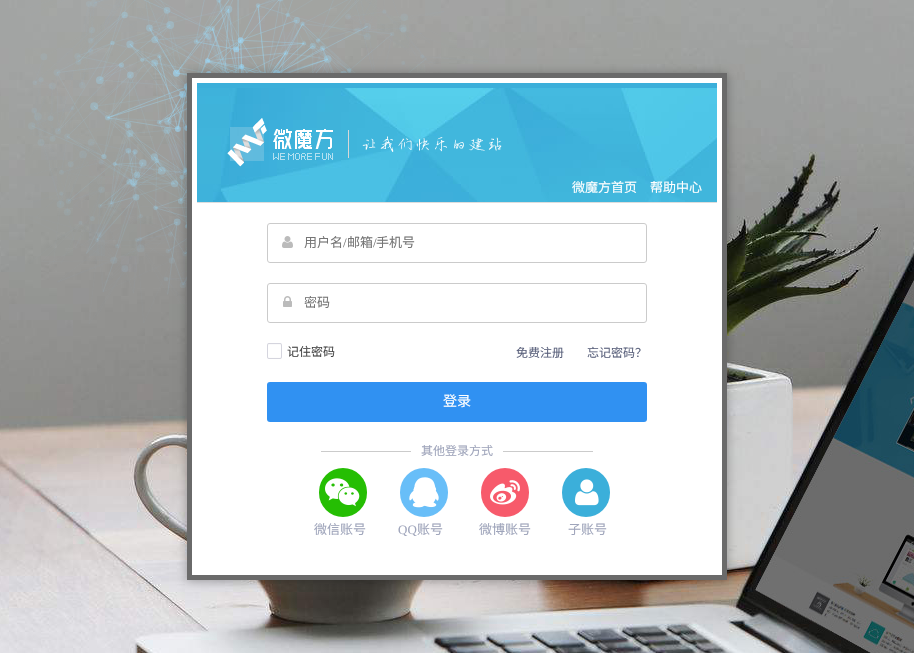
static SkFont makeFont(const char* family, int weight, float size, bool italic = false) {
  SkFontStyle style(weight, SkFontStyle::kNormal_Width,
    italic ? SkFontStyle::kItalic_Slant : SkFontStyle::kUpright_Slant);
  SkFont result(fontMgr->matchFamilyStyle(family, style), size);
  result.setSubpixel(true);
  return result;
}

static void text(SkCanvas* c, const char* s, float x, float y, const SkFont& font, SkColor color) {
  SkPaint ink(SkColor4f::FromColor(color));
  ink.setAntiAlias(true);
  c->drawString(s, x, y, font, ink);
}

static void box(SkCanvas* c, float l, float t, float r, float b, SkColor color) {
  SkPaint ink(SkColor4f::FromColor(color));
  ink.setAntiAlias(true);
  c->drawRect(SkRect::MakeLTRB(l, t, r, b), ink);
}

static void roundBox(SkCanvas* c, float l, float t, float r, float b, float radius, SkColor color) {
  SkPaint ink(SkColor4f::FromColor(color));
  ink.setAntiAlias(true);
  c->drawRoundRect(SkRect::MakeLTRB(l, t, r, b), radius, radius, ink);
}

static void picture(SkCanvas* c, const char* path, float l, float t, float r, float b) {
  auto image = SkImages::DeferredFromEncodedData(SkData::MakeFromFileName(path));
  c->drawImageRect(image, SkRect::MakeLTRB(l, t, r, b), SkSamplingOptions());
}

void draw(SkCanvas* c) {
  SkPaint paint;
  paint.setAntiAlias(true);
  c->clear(0xffffffff);
  picture(c, "img_01.png", 0, 0, 914, 653);
  picture(c, "img_02.png", 28, 0, 488, 324);
  paint.setColor(0x4d000000);
  paint.setMaskFilter(SkMaskFilter::MakeBlur(kNormal_SkBlurStyle, 5));
  c->drawRect(SkRect::MakeLTRB(187, 74, 727, 581), paint);
  paint.setMaskFilter(nullptr);
  paint.setColor(0xffffffff);
  c->drawRect(SkRect::MakeLTRB(189.5f, 75.5f, 724.5f, 577.5f), paint);
  paint.setStyle(SkPaint::kStroke_Style);
  paint.setStrokeWidth(5);
  paint.setColor(0xff6a6a6a);
  c->drawRect(SkRect::MakeLTRB(189.5f, 75.5f, 724.5f, 577.5f), paint);
  picture(c, "img_03.png", 197, 88, 717, 202);
  box(c, 197, 83, 717, 88, 0xff3bafda);
  box(c, 197, 202, 717, 203, 0xffdddddd);
  picture(c, "img_04.png", 227, 118, 502, 167);
  SkFont face1 = makeFont("Noto Sans CJK SC", 400, 13);
  text(c, "微魔方首页", 572, 192, face1, 0xffffffff);
  text(c, "帮助中心", 650, 192, face1, 0xffffffff);
  paint.setStrokeWidth(1);
  paint.setColor(0xffcbcbcb);
  c->drawRoundRect(SkRect::MakeLTRB(267.5f, 223.5f, 646.5f, 262.5f), 2.5f, 2.5f, paint);
  picture(c, "img_05.png", 282, 236, 293, 248);
  text(c, "用户名", 304, 247, face1, 0xff757575);
  SkFont face2 = makeFont("Liberation Serif", 400, 13);
  text(c, "/", 343, 247, face2, 0xff757575);
  text(c, "邮箱", 347, 247, face1, 0xff757575);
  text(c, "/", 373, 247, face2, 0xff757575);
  text(c, "手机号", 376, 247, face1, 0xff757575);
  c->drawRoundRect(SkRect::MakeLTRB(267.5f, 283.5f, 646.5f, 322.5f), 2.5f, 2.5f, paint);
  picture(c, "img_06.png", 283, 296, 292, 307);
  text(c, "密码", 304, 307, face1, 0xff757575);
  picture(c, "img_07.png", 267, 343, 282, 359);
  SkFont face3 = makeFont("Noto Sans CJK SC", 400, 12);
  text(c, "记住密码", 287, 356, face3, 0xff444444);
  text(c, "免费注册", 516, 357, face3, 0xff59607b);
  text(c, "忘记密码？", 587, 357, face3, 0xff59607b);
  roundBox(c, 267, 382, 647, 422, 3, 0xff3091f2);
  SkFont face4 = makeFont("Noto Sans CJK SC", 400, 14);
  text(c, "登录", 443, 406, face4, 0xffffffff);
  box(c, 321, 451, 411, 452, 0xffcbcbcb);
  text(c, "其他登录方式", 421, 455, face3, 0xff9fa5bb);
  box(c, 503, 451, 593, 452, 0xffcbcbcb);
  roundBox(c, 319, 468, 367, 517, 24, 0xff25be03);
  picture(c, "img_08.png", 325, 478, 360, 507);
  roundBox(c, 400, 468, 448, 517, 24, 0xff68bef8);
  picture(c, "img_09.png", 409, 477, 439, 508);
  roundBox(c, 481, 468, 529, 517, 24, 0xfff75a6b);
  picture(c, "img_10.png", 490, 480, 520, 505);
  roundBox(c, 562, 468, 610, 517, 24, 0xff3bafda);
  picture(c, "img_11.png", 575, 479, 599, 506);
  text(c, "微信账号", 314, 534, face1, 0xff9fa5bb);
  text(c, "QQ", 398, 534, face2, 0xff9fa5bb);
  text(c, "账号", 417, 534, face1, 0xff9fa5bb);
  text(c, "微博账号", 479, 534, face1, 0xff9fa5bb);
  text(c, "子账号", 568, 534, face1, 0xff9fa5bb);
}
